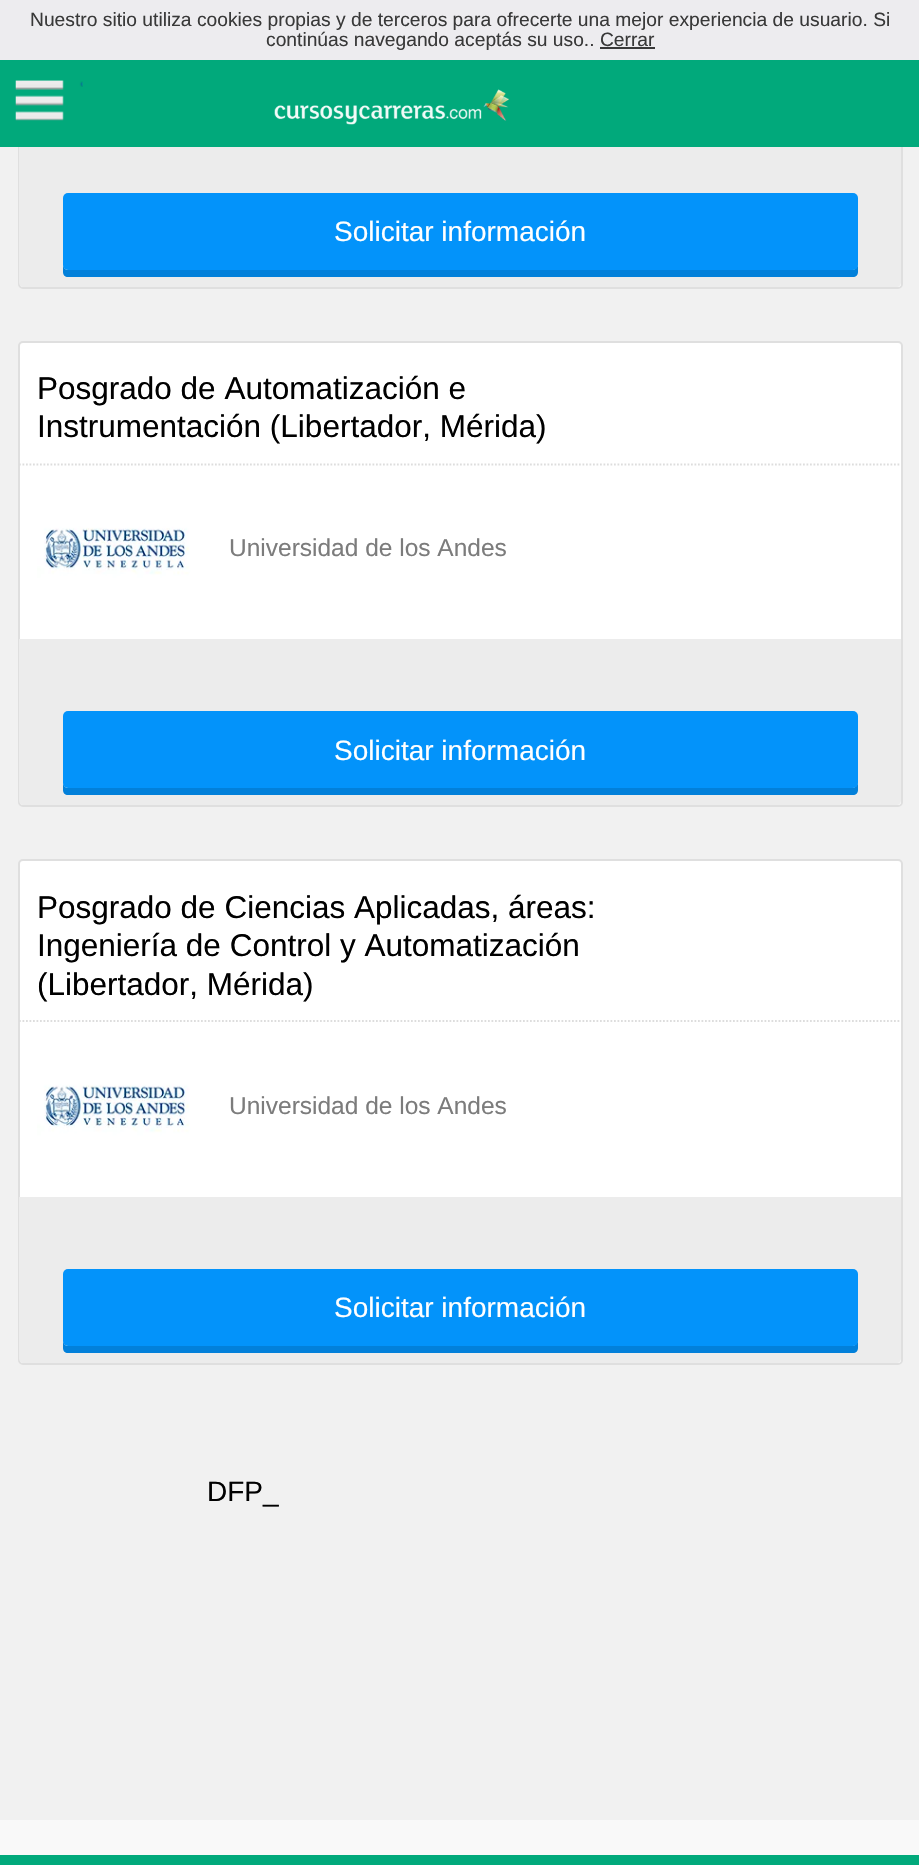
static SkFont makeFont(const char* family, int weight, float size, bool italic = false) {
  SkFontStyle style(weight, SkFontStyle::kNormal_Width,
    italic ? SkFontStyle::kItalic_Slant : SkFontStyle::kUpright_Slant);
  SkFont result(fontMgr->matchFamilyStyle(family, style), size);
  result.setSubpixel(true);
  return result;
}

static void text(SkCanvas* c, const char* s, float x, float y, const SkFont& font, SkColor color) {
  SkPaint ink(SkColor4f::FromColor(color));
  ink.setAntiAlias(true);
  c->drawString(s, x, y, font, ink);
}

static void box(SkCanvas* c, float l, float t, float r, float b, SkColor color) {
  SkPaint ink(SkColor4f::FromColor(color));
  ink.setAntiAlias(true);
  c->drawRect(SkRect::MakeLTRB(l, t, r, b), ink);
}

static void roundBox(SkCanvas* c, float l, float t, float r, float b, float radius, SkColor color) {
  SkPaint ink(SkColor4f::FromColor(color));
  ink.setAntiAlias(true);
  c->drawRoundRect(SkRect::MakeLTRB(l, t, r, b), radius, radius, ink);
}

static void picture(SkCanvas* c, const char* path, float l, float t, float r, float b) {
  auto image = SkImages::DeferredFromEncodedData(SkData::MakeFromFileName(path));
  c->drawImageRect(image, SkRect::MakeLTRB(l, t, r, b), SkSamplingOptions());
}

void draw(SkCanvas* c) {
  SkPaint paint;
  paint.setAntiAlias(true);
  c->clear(0xfff9f9f9);
  box(c, 0, 147, 919, 1820, 0xfff1f1f1);
  paint.setColor(0xffffffff);
  c->drawRoundRect(SkRect::MakeLTRB(19, -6, 902, 288), 4, 4, paint);
  paint.setStyle(SkPaint::kStroke_Style);
  paint.setStrokeWidth(2);
  paint.setColor(0xffdfdfdf);
  c->drawRoundRect(SkRect::MakeLTRB(19, -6, 902, 288), 4, 4, paint);
  box(c, 0, 0, 919, 60, 0xffedecef);
  SkFont face1 = makeFont("Liberation Sans", 400, 19.25f);
  text(c, "Nuestro sitio utiliza cookies propias y de terceros para ofrecerte una mejor experiencia de usuario. Si", 30, 26, face1, 0xff393939);
  text(c, "continúas navegando aceptás su uso.. Cerrar", 266, 46, face1, 0xff393939);
  box(c, 600, 47, 655, 49, 0xff393939);
  paint.setStyle(SkPaint::kFill_Style);
  paint.setColor(0xffececec);
  c->drawPath(SkPathBuilder().moveTo(19, 121).lineTo(901, 121).lineTo(901, 283).cubicTo(901, 285, 899, 287, 897, 287).lineTo(23, 287).cubicTo(21, 287, 19, 285, 19, 283).close().detach(), paint);
  box(c, 0, 60, 919, 147, 0xff01a97b);
  picture(c, "img_01.png", 15, 80, 83, 121);
  picture(c, "img_02.png", 274, 89, 510, 125);
  paint.setColor(0xff0280da);
  c->drawPath(SkPathBuilder().moveTo(63, 264).lineTo(63, 272).cubicTo(63, 275, 65, 277, 68, 277).lineTo(853, 277).cubicTo(856, 277, 858, 275, 858, 272).lineTo(858, 205).lineTo(858, 203).lineTo(858, 264).cubicTo(858, 267, 855, 270, 852, 270).lineTo(68, 270).cubicTo(65, 270, 63, 267, 63, 264).close().detach(), paint);
  roundBox(c, 63, 193, 858, 270, 5, 0xff0393fa);
  SkFont face2 = makeFont("Liberation Sans", 400, 28);
  text(c, "Solicitar información", 334, 241, face2, 0xffffffff);
  paint.setColor(0xffffffff);
  c->drawRoundRect(SkRect::MakeLTRB(19, 342, 902, 806), 4, 4, paint);
  paint.setStyle(SkPaint::kStroke_Style);
  paint.setColor(0xffdfdfdf);
  c->drawRoundRect(SkRect::MakeLTRB(19, 342, 902, 806), 4, 4, paint);
  SkFont face3 = makeFont("Liberation Sans", 400, 31.5f);
  text(c, "Posgrado de Automatización e", 37, 399, face3, 0xff000000);
  text(c, "Instrumentación (Libertador, Mérida)", 37, 437, face3, 0xff000000);
  paint.setStrokeWidth(1.8f);
  paint.setColor(0xffdddddd);
  paint.setPathEffect(SkDashPathEffect::Make({{1.75f, 1.75f}}, 0));
  c->drawPath(SkPathBuilder().moveTo(19, 464.5f).lineTo(901, 464.5f).detach(), paint);
  paint.setPathEffect(nullptr);
  picture(c, "img_03.png", 37, 483, 194, 616);
  SkFont face4 = makeFont("Liberation Sans", 400, 24.5f);
  text(c, "Universidad de los Andes", 229, 556, face4, 0xff7c7c7c);
  paint.setStyle(SkPaint::kFill_Style);
  paint.setColor(0xffececec);
  c->drawPath(SkPathBuilder().moveTo(19, 639).lineTo(901, 639).lineTo(901, 801).cubicTo(901, 803, 899, 805, 897, 805).lineTo(23, 805).cubicTo(21, 805, 19, 803, 19, 801).close().detach(), paint);
  paint.setColor(0xff0280da);
  c->drawPath(SkPathBuilder().moveTo(63, 782).lineTo(63, 790).cubicTo(63, 793, 65, 795, 68, 795).lineTo(853, 795).cubicTo(856, 795, 858, 793, 858, 790).lineTo(858, 723).lineTo(858, 721).lineTo(858, 782).cubicTo(858, 785, 855, 788, 852, 788).lineTo(68, 788).cubicTo(65, 788, 63, 785, 63, 782).close().detach(), paint);
  roundBox(c, 63, 711, 858, 788, 5, 0xff0393fa);
  text(c, "Solicitar información", 334, 760, face2, 0xffffffff);
  paint.setColor(0xffffffff);
  c->drawRoundRect(SkRect::MakeLTRB(19, 860, 902, 1364), 4, 4, paint);
  paint.setStyle(SkPaint::kStroke_Style);
  paint.setStrokeWidth(2);
  paint.setColor(0xffdfdfdf);
  c->drawRoundRect(SkRect::MakeLTRB(19, 860, 902, 1364), 4, 4, paint);
  text(c, "Posgrado de Ciencias Aplicadas, áreas:", 37, 918, face3, 0xff000000);
  text(c, "Ingeniería de Control y Automatización", 37, 956, face3, 0xff000000);
  text(c, "(Libertador, Mérida)", 37, 995, face3, 0xff000000);
  paint.setStrokeWidth(1.8f);
  paint.setColor(0xffdddddd);
  paint.setPathEffect(SkDashPathEffect::Make({{1.75f, 1.75f}}, 0));
  c->drawPath(SkPathBuilder().moveTo(19, 1021).lineTo(901, 1021).detach(), paint);
  paint.setPathEffect(nullptr);
  picture(c, "img_04.png", 37, 1040, 194, 1174);
  text(c, "Universidad de los Andes", 229, 1114, face4, 0xff7c7c7c);
  paint.setStyle(SkPaint::kFill_Style);
  paint.setColor(0xffececec);
  c->drawPath(SkPathBuilder().moveTo(19, 1197).lineTo(901, 1197).lineTo(901, 1359).cubicTo(901, 1361, 899, 1363, 897, 1363).lineTo(23, 1363).cubicTo(21, 1363, 19, 1361, 19, 1359).close().detach(), paint);
  paint.setColor(0xff0280da);
  c->drawPath(SkPathBuilder().moveTo(63, 1340).lineTo(63, 1348).cubicTo(63, 1351, 65, 1353, 68, 1353).lineTo(853, 1353).cubicTo(856, 1353, 858, 1351, 858, 1348).lineTo(858, 1281).lineTo(858, 1279).lineTo(858, 1340).cubicTo(858, 1343, 855, 1346, 852, 1346).lineTo(68, 1346).cubicTo(65, 1346, 63, 1343, 63, 1340).close().detach(), paint);
  roundBox(c, 63, 1269, 858, 1346, 5, 0xff0393fa);
  text(c, "Solicitar información", 334, 1317, face2, 0xffffffff);
  text(c, "DFP_", 207, 1501, face2, 0xff000000);
  box(c, 0, 1855, 919, 1865, 0xff01a97b);
}
